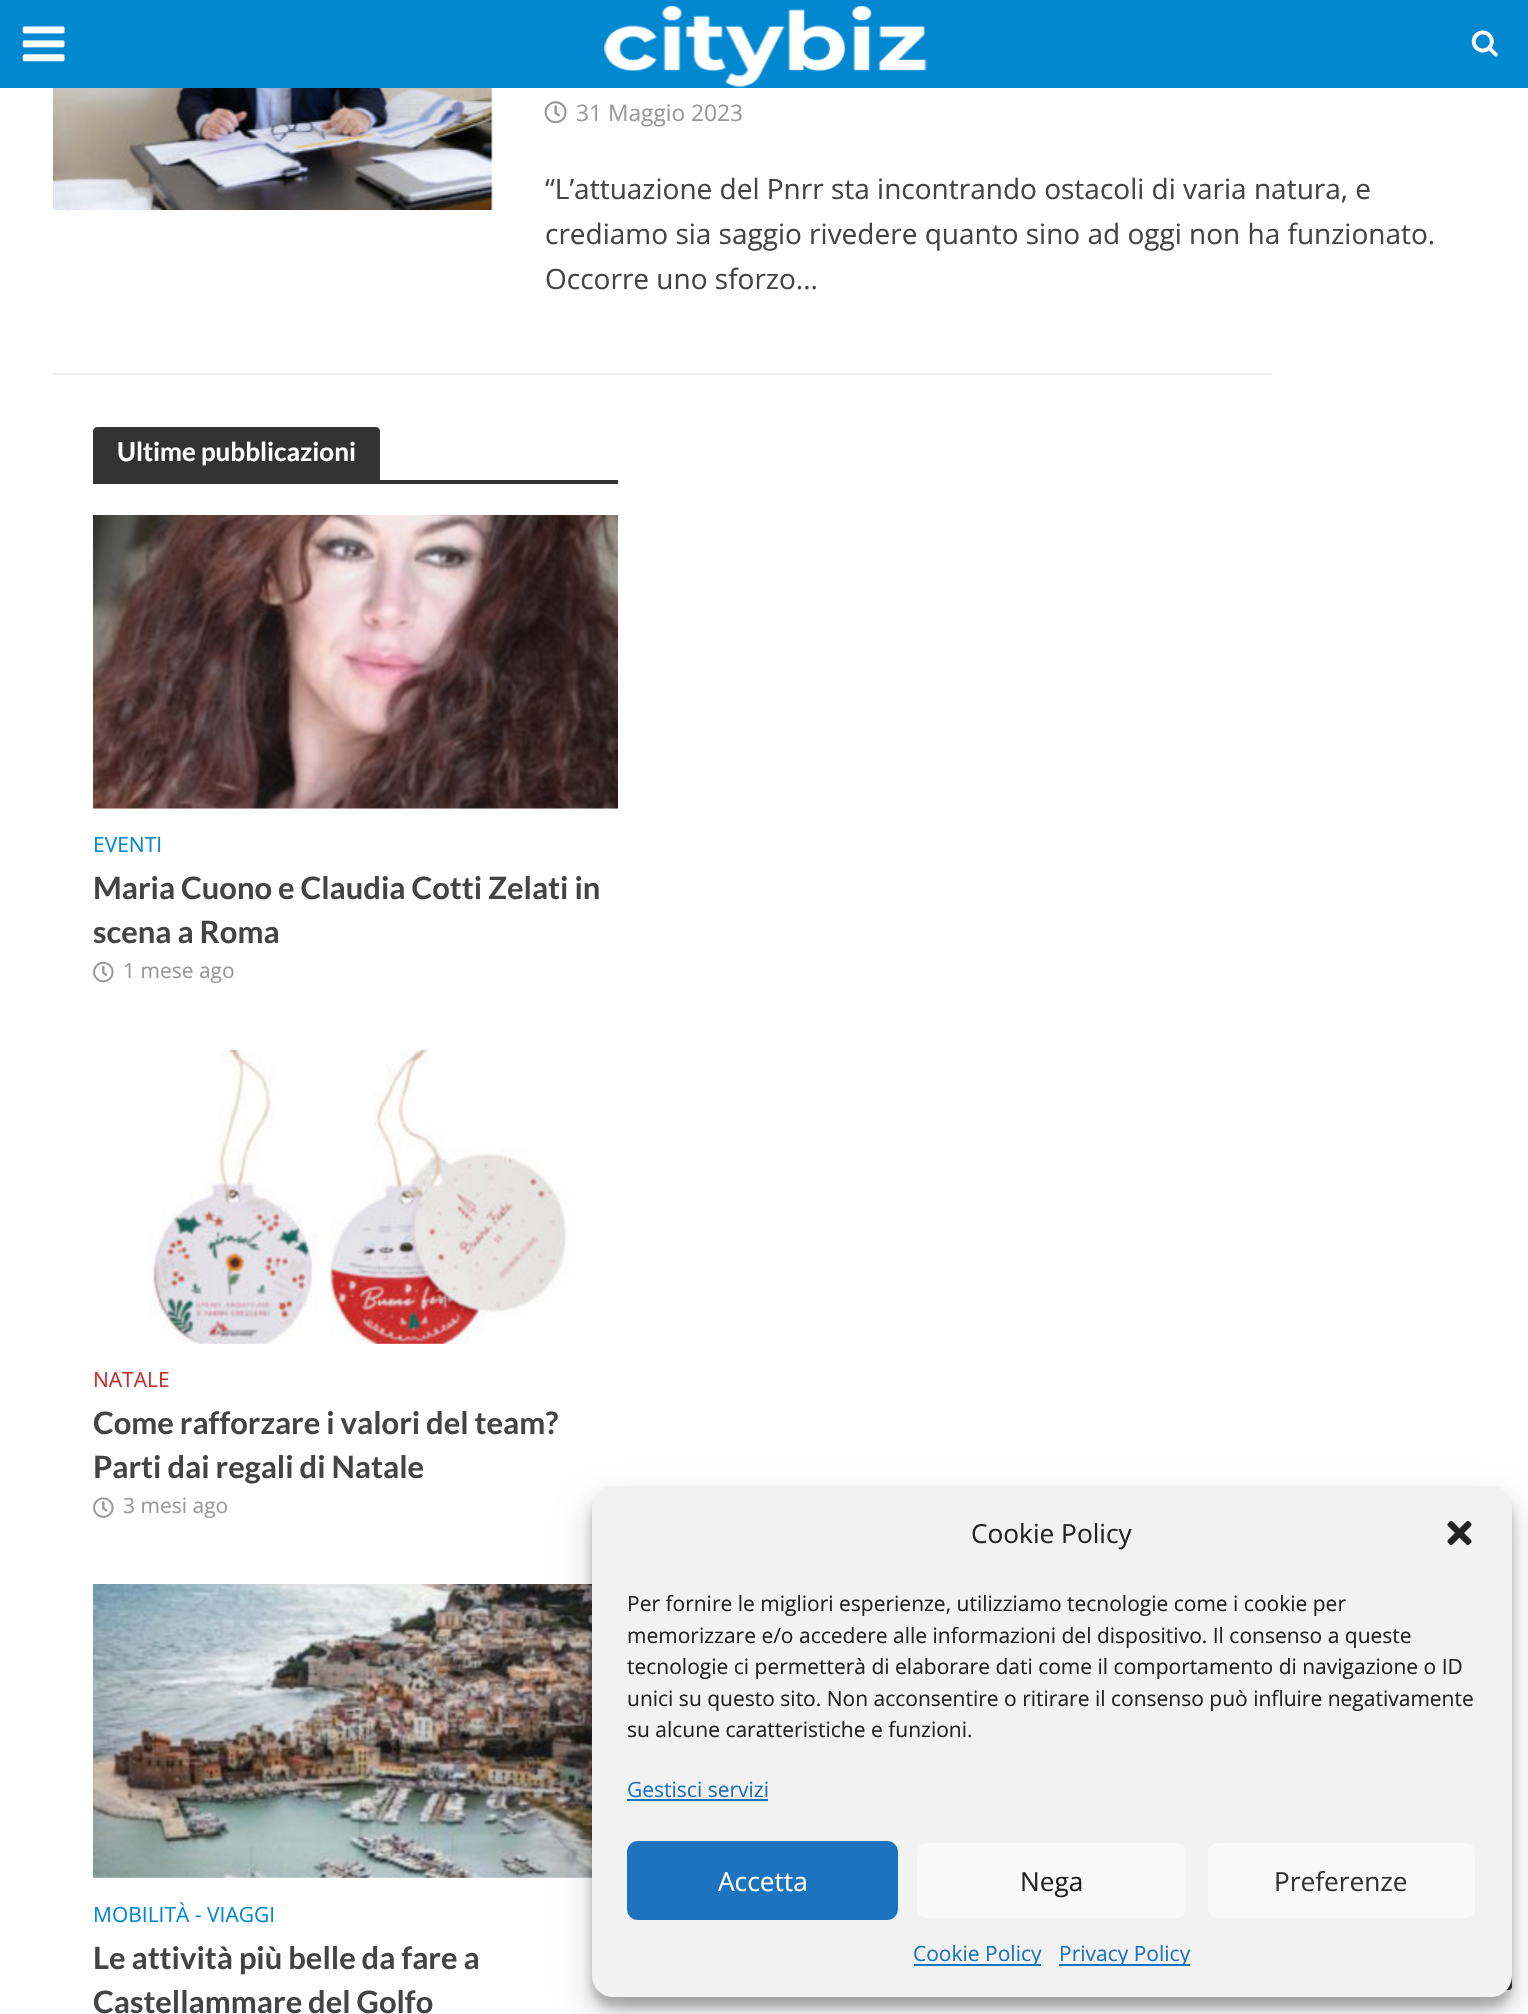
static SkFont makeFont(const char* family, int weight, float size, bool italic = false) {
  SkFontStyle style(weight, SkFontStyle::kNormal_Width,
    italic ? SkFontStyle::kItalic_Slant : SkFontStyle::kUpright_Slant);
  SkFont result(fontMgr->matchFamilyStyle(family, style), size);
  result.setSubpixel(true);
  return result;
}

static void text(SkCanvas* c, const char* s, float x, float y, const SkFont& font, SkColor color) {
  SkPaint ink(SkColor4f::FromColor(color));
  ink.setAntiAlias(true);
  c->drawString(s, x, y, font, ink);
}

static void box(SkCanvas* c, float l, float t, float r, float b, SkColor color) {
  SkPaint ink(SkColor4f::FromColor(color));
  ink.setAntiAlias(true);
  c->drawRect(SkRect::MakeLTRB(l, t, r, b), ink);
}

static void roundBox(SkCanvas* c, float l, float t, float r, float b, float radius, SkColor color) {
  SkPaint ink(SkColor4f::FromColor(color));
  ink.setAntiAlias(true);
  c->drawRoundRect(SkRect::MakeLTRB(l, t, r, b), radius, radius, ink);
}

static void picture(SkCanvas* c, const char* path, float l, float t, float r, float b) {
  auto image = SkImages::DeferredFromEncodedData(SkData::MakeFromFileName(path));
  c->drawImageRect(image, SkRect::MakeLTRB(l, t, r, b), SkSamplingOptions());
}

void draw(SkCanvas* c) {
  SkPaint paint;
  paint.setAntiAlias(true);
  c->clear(0xffffffff);
  box(c, 0, 0, 1528, 88, 0xff0288d1);
  picture(c, "img_01.png", 22, 26, 65, 62);
  picture(c, "img_02.png", 604, 6, 928, 88);
  picture(c, "img_03.png", 1471, 30, 1498, 57);
  box(c, 491, 88, 492, 210, 0xfff3f3f3);
  picture(c, "img_04.png", 53, 88, 493, 210);
  picture(c, "img_05.png", 544, 101, 567, 124);
  SkFont face1 = makeFont("Open Sans", 400, 22.75f);
  text(c, "31 Maggio 2023", 576, 121, face1, 0xff999999);
  SkFont face2 = makeFont("Open Sans", 400, 28);
  text(c, "“L’attuazione del Pnrr sta incontrando ostacoli di varia natura, e", 545, 199, face2, 0xff444444);
  text(c, "crediamo sia saggio rivedere quanto sino ad oggi non ha funzionato.", 545, 244, face2, 0xff444444);
  text(c, "Occorre uno sforzo...", 545, 289, face2, 0xff444444);
  box(c, 53, 373, 1272, 375, 0xffeeeeee);
  paint.setColor(0xff333333);
  c->drawPath(SkPathBuilder().moveTo(97, 427).lineTo(376, 427).cubicTo(378, 427, 380, 429, 380, 431).lineTo(380, 480).lineTo(93, 480).lineTo(93, 431).cubicTo(93, 429, 95, 427, 97, 427).close().detach(), paint);
  SkFont face3 = makeFont("Lato", 700, 26);
  text(c, "Ultime pubblicazioni", 117, 461, face3, 0xffffffff);
  box(c, 93, 480, 618, 484, 0xff333333);
  box(c, 93, 808, 618, 809, 0xfff3f3f3);
  picture(c, "img_06.png", 93, 515, 618, 809);
  SkFont face4 = makeFont("Open Sans", 400, 21);
  text(c, "EVENTI", 93, 852, face4, 0xff0288d1);
  SkFont face5 = makeFont("Lato", 700, 30.9f);
  text(c, "Maria Cuono e Claudia Cotti Zelati in", 93, 899, face5, 0xff444444);
  text(c, "scena a Roma", 93, 943, face5, 0xff444444);
  picture(c, "img_07.png", 93, 961, 114, 983);
  text(c, "1 mese ago", 123, 978, face4, 0xff999999);
  picture(c, "img_08.png", 93, 1049, 618, 1344);
  text(c, "NATALE", 93, 1387, face4, 0xffc62d2d);
  text(c, "Come rafforzare i valori del team?", 93, 1434, face5, 0xff444444);
  text(c, "Parti dai regali di Natale", 93, 1478, face5, 0xff444444);
  picture(c, "img_09.png", 93, 1497, 114, 1518);
  text(c, "3 mesi ago", 123, 1513, face4, 0xff999999);
  picture(c, "img_10.png", 93, 1584, 592, 1878);
  text(c, "MOBILITÀ - VIAGGI", 93, 1922, face4, 0xff0288d1);
  text(c, "Le attività più belle da fare a", 93, 1969, face5, 0xff444444);
  text(c, "Castellammare del Golfo", 93, 2013, face5, 0xff444444);
  roundBox(c, 1446, 1923, 1512, 1990, 4, 0xff333333);
  paint.setColor(0x3b000000);
  paint.setMaskFilter(SkMaskFilter::MakeBlur(kNormal_SkBlurStyle, 5));
  c->drawRoundRect(SkRect::MakeLTRB(592, 1496, 1512, 2007), 21, 21, paint);
  paint.setMaskFilter(nullptr);
  paint.setColor(0x30000000);
  paint.setMaskFilter(SkMaskFilter::MakeBlur(kNormal_SkBlurStyle, 17.5f));
  c->drawRoundRect(SkRect::MakeLTRB(592, 1503, 1512, 2014), 21, 21, paint);
  paint.setMaskFilter(nullptr);
  roundBox(c, 592, 1486, 1512, 1997, 21, 0xfff2f2f2);
  SkFont face6 = makeFont("Open Sans", 400, 26.25f);
  text(c, "Cookie Policy", 971, 1543, face6, 0xff222222);
  picture(c, "img_11.png", 1447, 1521, 1472, 1545);
  text(c, "Per fornire le migliori esperienze, utilizziamo tecnologie come i cookie per", 627, 1611, face4, 0xff222222);
  text(c, "memorizzare e/o accedere alle informazioni del dispositivo. Il consenso a queste", 627, 1643, face4, 0xff222222);
  text(c, "tecnologie ci permetterà di elaborare dati come il comportamento di navigazione o ID", 627, 1674, face4, 0xff222222);
  text(c, "unici su questo sito. Non acconsentire o ritirare il consenso può influire negativamente", 627, 1706, face4, 0xff222222);
  text(c, "su alcune caratteristiche e funzioni.", 627, 1737, face4, 0xff222222);
  text(c, "Gestisci servizi", 627, 1797, face4, 0xff1e73be);
  box(c, 627, 1799, 768, 1801, 0xff1e73be);
  paint.setColor(0xff1e73be);
  c->drawRoundRect(SkRect::MakeLTRB(628, 1842, 897, 1919), 10, 10, paint);
  paint.setStyle(SkPaint::kStroke_Style);
  paint.setStrokeWidth(2);
  c->drawRoundRect(SkRect::MakeLTRB(628, 1842, 897, 1919), 10, 10, paint);
  text(c, "Accetta", 718, 1891, face6, 0xffffffff);
  paint.setStyle(SkPaint::kFill_Style);
  paint.setColor(0xfff9f9f9);
  c->drawRoundRect(SkRect::MakeLTRB(916, 1842, 1187, 1919), 10, 10, paint);
  paint.setStyle(SkPaint::kStroke_Style);
  paint.setColor(0xfff2f2f2);
  c->drawRoundRect(SkRect::MakeLTRB(916, 1842, 1187, 1919), 10, 10, paint);
  text(c, "Nega", 1020, 1891, face6, 0xff222222);
  paint.setStyle(SkPaint::kFill_Style);
  paint.setColor(0xfff9f9f9);
  c->drawRoundRect(SkRect::MakeLTRB(1207, 1842, 1476, 1919), 10, 10, paint);
  paint.setStyle(SkPaint::kStroke_Style);
  paint.setColor(0xfff2f2f2);
  c->drawRoundRect(SkRect::MakeLTRB(1207, 1842, 1476, 1919), 10, 10, paint);
  text(c, "Preferenze", 1274, 1891, face6, 0xff333333);
  box(c, 914, 1964, 1041, 1966, 0xff1e73be);
  text(c, "Cookie Policy", 913, 1961, face4, 0xff1e73be);
  box(c, 1059, 1964, 1190, 1966, 0xff1e73be);
  text(c, "Privacy Policy", 1059, 1961, face4, 0xff1e73be);
}
